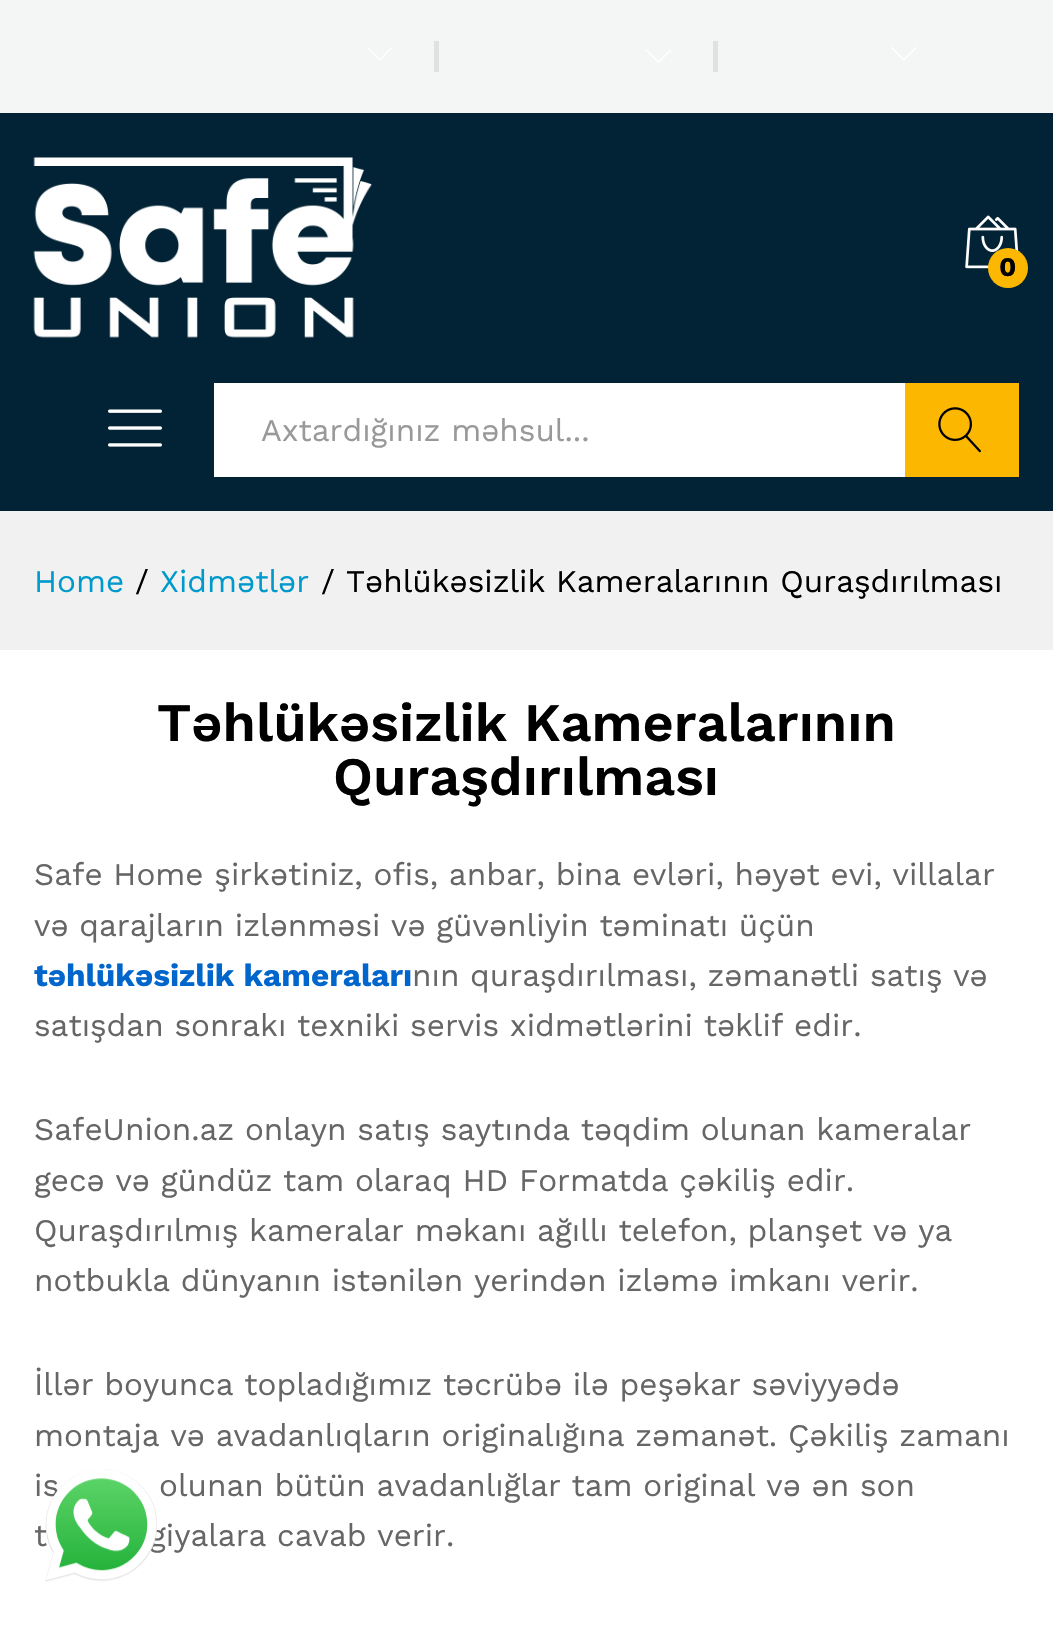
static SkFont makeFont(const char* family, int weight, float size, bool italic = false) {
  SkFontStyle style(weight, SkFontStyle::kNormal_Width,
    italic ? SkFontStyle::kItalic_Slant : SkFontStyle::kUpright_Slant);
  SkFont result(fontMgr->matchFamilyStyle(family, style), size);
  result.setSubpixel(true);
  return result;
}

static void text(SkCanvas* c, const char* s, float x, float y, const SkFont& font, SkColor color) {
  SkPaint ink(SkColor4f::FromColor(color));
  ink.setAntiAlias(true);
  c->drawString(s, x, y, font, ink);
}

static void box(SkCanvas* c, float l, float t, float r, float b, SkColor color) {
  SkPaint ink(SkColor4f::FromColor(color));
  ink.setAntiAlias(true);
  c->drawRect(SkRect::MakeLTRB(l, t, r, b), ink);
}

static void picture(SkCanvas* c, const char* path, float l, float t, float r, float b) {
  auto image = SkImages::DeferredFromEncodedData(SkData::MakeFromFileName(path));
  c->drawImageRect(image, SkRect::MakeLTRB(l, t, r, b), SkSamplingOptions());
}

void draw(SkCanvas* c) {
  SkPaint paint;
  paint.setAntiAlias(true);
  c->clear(0xffffffff);
  box(c, 0, 0, 1053, 113, 0xfff4f5f5);
  picture(c, "img_01.png", 367, 47, 392, 61);
  box(c, 434, 41, 439, 72, 0xffe1e1e1);
  picture(c, "img_02.png", 646, 49, 671, 63);
  box(c, 713, 41, 718, 72, 0xffe1e1e1);
  picture(c, "img_03.png", 891, 47, 917, 60);
  box(c, 0, 113, 1053, 511, 0xff022335);
  picture(c, "img_04.png", 33, 157, 372, 338);
  picture(c, "img_05.png", 965, 215, 1019, 269);
  paint.setColor(0xfffcb800);
  c->drawCircle(1008, 268, 20, paint);
  SkFont face1 = makeFont("Work Sans", 700, 27);
  text(c, "0", 999, 276, face1, 0xff000000);
  picture(c, "img_06.png", 108, 409, 162, 447);
  box(c, 214, 383, 905, 477, 0xffffffff);
  SkFont face2 = makeFont("Work Sans", 400, 31.5f);
  text(c, "Axtardığınız məhsul...", 261, 441, face2, 0xff999999);
  box(c, 905, 383, 1019, 477, 0xfffcb800);
  picture(c, "img_07.png", 938, 407, 981, 453);
  box(c, 0, 511, 1053, 650, 0xfff1f1f1);
  text(c, "Home", 34, 592, face2, 0xff0099cc);
  text(c, "/", 135, 592, face2, 0xff000000);
  text(c, "Xidmətlər", 160, 592, face2, 0xff0099cc);
  text(c, "/", 321, 592, face2, 0xff000000);
  text(c, "Təhlükəsizlik Kameralarının Quraşdırılması", 346, 592, face2, 0xff000000);
  SkFont face3 = makeFont("Work Sans", 600, 54);
  text(c, "Təhlükəsizlik Kameralarının", 157, 741, face3, 0xff000000);
  text(c, "Quraşdırılması", 333, 795, face3, 0xff000000);
  text(c, "Safe Home şirkətiniz, ofis, anbar, bina evləri, həyət evi, villalar", 34, 885, face2, 0xff666666);
  text(c, "və qarajların izlənməsi və güvənliyin təminatı üçün", 34, 936, face2, 0xff666666);
  SkFont face4 = makeFont("Work Sans", 700, 31.5f);
  text(c, "təhlükəsizlik kameraları", 34, 986, face4, 0xff0066cc);
  text(c, "nın quraşdırılması, zəmanətli satış və", 412, 986, face2, 0xff666666);
  text(c, "satışdan sonrakı texniki servis xidmətlərini təklif edir.", 34, 1036, face2, 0xff666666);
  text(c, "SafeUnion.az onlayn satış saytında təqdim olunan kameralar", 34, 1140, face2, 0xff666666);
  text(c, "gecə və gündüz tam olaraq HD Formatda çəkiliş edir.", 34, 1191, face2, 0xff666666);
  text(c, "Quraşdırılmış kameralar məkanı ağıllı telefon, planşet və ya", 34, 1241, face2, 0xff666666);
  text(c, "notbukla dünyanın istənilən yerindən izləmə imkanı verir.", 34, 1291, face2, 0xff666666);
  text(c, "İllər boyunca topladığımız təcrübə ilə peşəkar səviyyədə", 34, 1395, face2, 0xff666666);
  text(c, "montaja və avadanlıqların originalığına zəmanət. Çəkiliş zamanı", 34, 1446, face2, 0xff666666);
  text(c, "is", 34, 1496, face2, 0xff666666);
  text(c, "olunan bütün avadanlığlar tam original və ən son", 159, 1496, face2, 0xff666666);
  text(c, "t", 34, 1546, face2, 0xff666666);
  text(c, "giyalara cavab verir.", 149, 1546, face2, 0xff666666);
  picture(c, "img_08.png", 45, 1469, 157, 1582);
}
